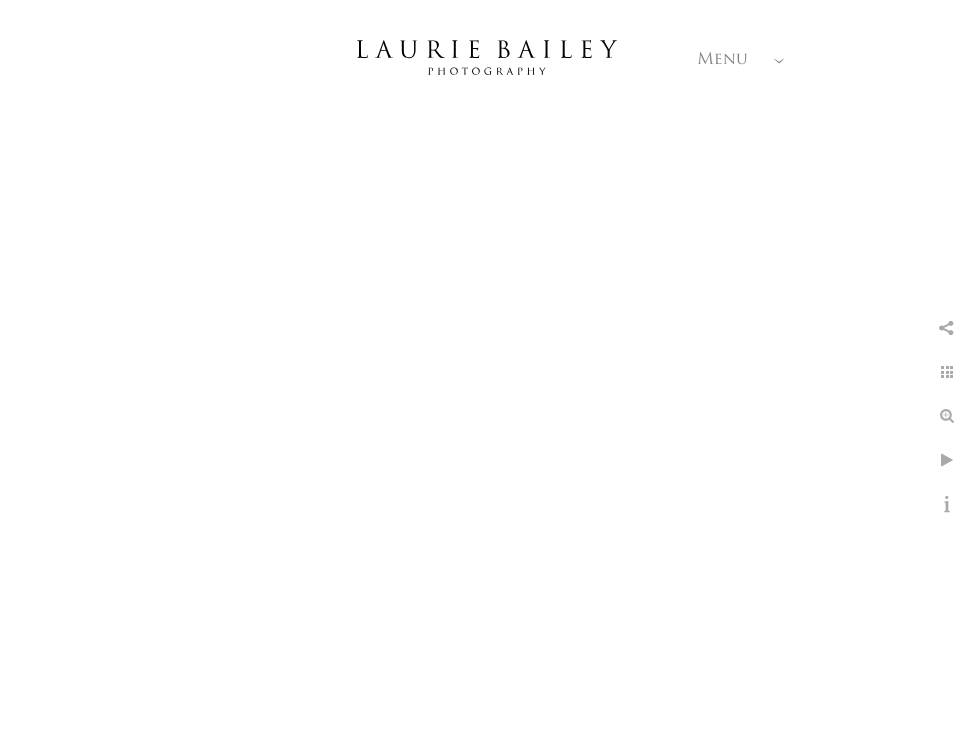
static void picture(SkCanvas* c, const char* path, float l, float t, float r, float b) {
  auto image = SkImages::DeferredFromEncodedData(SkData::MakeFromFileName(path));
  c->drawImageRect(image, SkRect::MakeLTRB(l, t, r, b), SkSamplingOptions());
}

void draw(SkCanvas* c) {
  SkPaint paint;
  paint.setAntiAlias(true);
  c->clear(0xffffffff);
  picture(c, "img_01.png", 357, 40, 617, 75);
  picture(c, "img_02.png", 698, 51, 747, 65);
  picture(c, "img_03.png", 774, 58, 784, 64);
  picture(c, "img_04.png", 939, 320, 954, 336);
  picture(c, "img_05.png", 941, 366, 953, 378);
  picture(c, "img_06.png", 940, 409, 954, 423);
  picture(c, "img_07.png", 941, 453, 953, 467);
  picture(c, "img_08.png", 944, 495, 950, 513);
}
